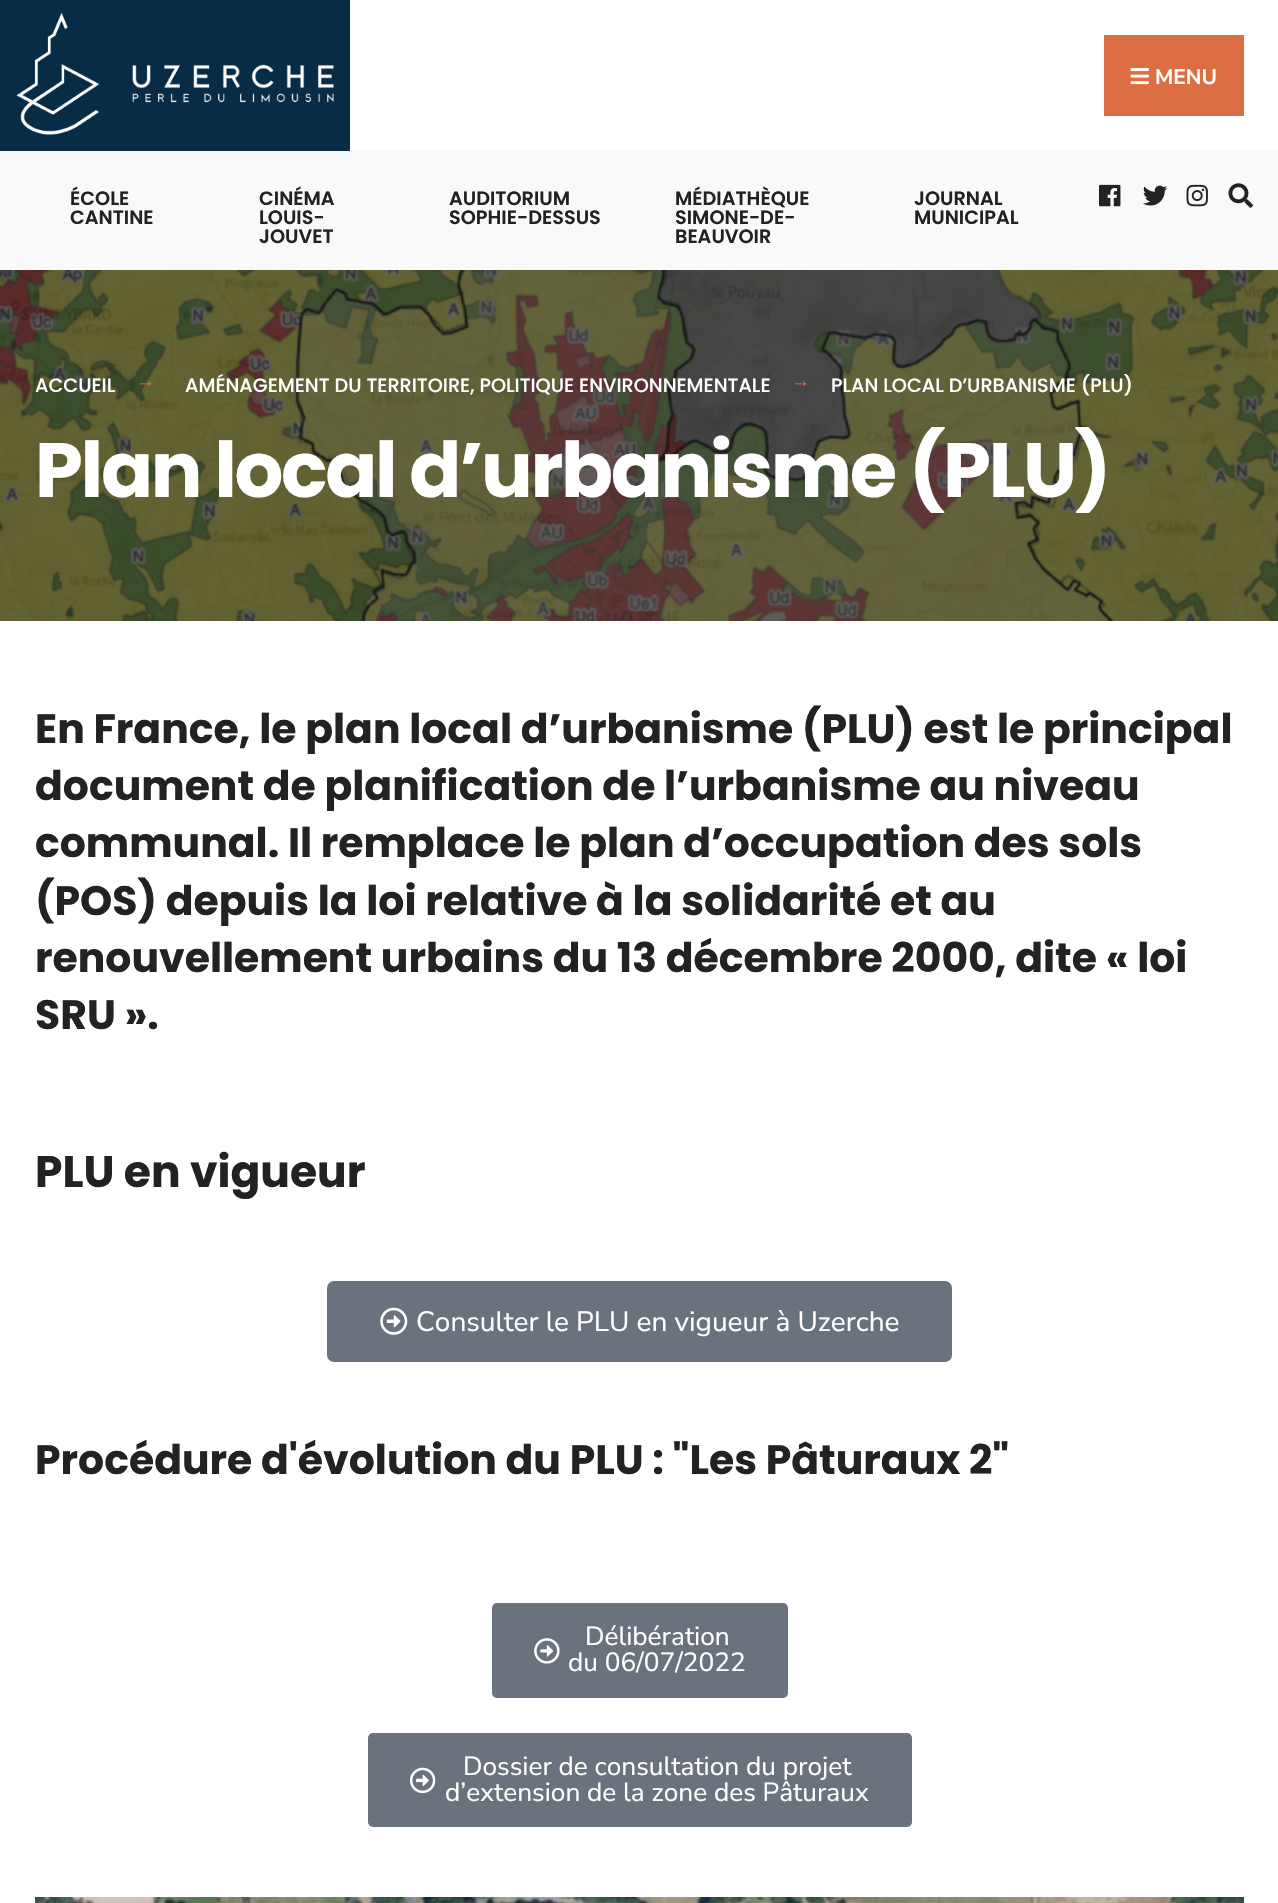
static SkFont makeFont(const char* family, int weight, float size, bool italic = false) {
  SkFontStyle style(weight, SkFontStyle::kNormal_Width,
    italic ? SkFontStyle::kItalic_Slant : SkFontStyle::kUpright_Slant);
  SkFont result(fontMgr->matchFamilyStyle(family, style), size);
  result.setSubpixel(true);
  return result;
}

static void text(SkCanvas* c, const char* s, float x, float y, const SkFont& font, SkColor color) {
  SkPaint ink(SkColor4f::FromColor(color));
  ink.setAntiAlias(true);
  c->drawString(s, x, y, font, ink);
}

static void spacedText(SkCanvas* c, const char* s, float x, float y, const SkFont& font, const SkPaint& ink, float letter, float word) {
  std::vector<SkGlyphID> glyphs(font.countText(s, strlen(s), SkTextEncoding::kUTF8));
  std::vector<float> xs(glyphs.size());
  font.textToGlyphs(s, strlen(s), SkTextEncoding::kUTF8, glyphs);
  font.getXPos(glyphs, xs, x);
  float extra = 0;
  for (size_t i = 0; i < glyphs.size(); i++) {
    xs[i] += extra;
    extra += letter + word * (glyphs[i] == font.unicharToGlyph(' '));
  }
  c->drawTextBlob(SkTextBlob::MakeFromPosHGlyphs(glyphs, xs, y, font), 0, 0, ink);
}

static void box(SkCanvas* c, float l, float t, float r, float b, SkColor color) {
  SkPaint ink(SkColor4f::FromColor(color));
  ink.setAntiAlias(true);
  c->drawRect(SkRect::MakeLTRB(l, t, r, b), ink);
}

static void roundBox(SkCanvas* c, float l, float t, float r, float b, float radius, SkColor color) {
  SkPaint ink(SkColor4f::FromColor(color));
  ink.setAntiAlias(true);
  c->drawRoundRect(SkRect::MakeLTRB(l, t, r, b), radius, radius, ink);
}

static void picture(SkCanvas* c, const char* path, float l, float t, float r, float b) {
  auto image = SkImages::DeferredFromEncodedData(SkData::MakeFromFileName(path));
  c->drawImageRect(image, SkRect::MakeLTRB(l, t, r, b), SkSamplingOptions());
}

void draw(SkCanvas* c) {
  SkPaint paint;
  paint.setAntiAlias(true);
  c->clear(0xff1e1e1e);
  box(c, 350, 0, 1278, 151, 0xffffffff);
  box(c, 0, 0, 350, 151, 0xff082c45);
  picture(c, "img_01.png", 16, 13, 334, 135);
  box(c, 1104, 35, 1244, 116, 0xffdb6e43);
  picture(c, "img_02.png", 1130, 68, 1149, 85);
  SkFont face1 = makeFont("Nunito Sans", 700, 21);
  text(c, "MENU", 1155, 84, face1, 0xffffffff);
  box(c, 0, 151, 1278, 270, 0xfff9f9f9);
  SkFont face2 = makeFont("Poppins", 600, 19.25f);
  text(c, "ÉCOLE", 70, 205, face2, 0xff222222);
  text(c, "CANTINE", 70, 224, face2, 0xff222222);
  text(c, "CINÉMA", 259, 205, face2, 0xff222222);
  text(c, "LOUIS-", 259, 224, face2, 0xff222222);
  text(c, "JOUVET", 259, 243, face2, 0xff222222);
  text(c, "AUDITORIUM", 449, 205, face2, 0xff222222);
  text(c, "SOPHIE-DESSUS", 449, 224, face2, 0xff222222);
  text(c, "MÉDIATHÈQUE", 675, 205, face2, 0xff222222);
  text(c, "SIMONE-DE-", 675, 224, face2, 0xff222222);
  text(c, "BEAUVOIR", 675, 243, face2, 0xff222222);
  text(c, "JOURNAL", 914, 205, face2, 0xff222222);
  text(c, "MUNICIPAL", 914, 224, face2, 0xff222222);
  picture(c, "img_03.png", 1099, 184, 1121, 207);
  picture(c, "img_04.png", 1143, 185, 1167, 206);
  picture(c, "img_05.png", 1186, 184, 1208, 207);
  picture(c, "img_06.png", 1228, 183, 1253, 208);
  picture(c, "img_07.png", 0, 270, 1278, 621);
  SkFont face3 = makeFont("Poppins", 500, 19.25f);
  text(c, "ACCUEIL", 35, 392, face3, 0xffffffff);
  SkFont face4 = makeFont("Liberation Serif", 400, 19.25f);
  text(c, "→", 136, 387, face4, 0xffdb6e43);
  text(c, "AMÉNAGEMENT DU TERRITOIRE, POLITIQUE ENVIRONNEMENTALE", 185, 392, face3, 0xffffffff);
  text(c, "→", 791, 387, face4, 0xffdb6e43);
  text(c, "PLAN LOCAL D’URBANISME (PLU)", 831, 392, face3, 0xffffffff);
  SkFont face5 = makeFont("Poppins", 700, 76.75f);
  paint.setColor(0xffffffff);
  spacedText(c, "Plan local d’urbanisme (PLU)", 35, 497, face5, paint, -2.3f, 0);
  box(c, 0, 621, 1278, 1903, 0xffffffff);
  SkFont face6 = makeFont("Poppins", 700, 40.95f);
  text(c, "En France, le plan local d’urbanisme (PLU) est le principal", 35, 743, face6, 0xff222222);
  text(c, "document de planification de l’urbanisme au niveau", 35, 800, face6, 0xff222222);
  text(c, "communal. Il remplace le plan d’occupation des sols", 35, 857, face6, 0xff222222);
  text(c, "(POS) depuis la loi relative à la solidarité et au", 35, 915, face6, 0xff222222);
  text(c, "renouvellement urbains du 13 décembre 2000, dite « loi", 35, 972, face6, 0xff222222);
  text(c, "SRU ».", 35, 1029, face6, 0xff222222);
  SkFont face7 = makeFont("Poppins", 700, 44);
  text(c, "PLU en vigueur", 35, 1187, face7, 0xff222222);
  roundBox(c, 327, 1281, 952, 1362, 7, 0xff69727d);
  picture(c, "img_08.png", 380, 1307, 408, 1335);
  SkFont face8 = makeFont("Nunito Sans", 400, 28);
  text(c, "Consulter le PLU en vigueur à Uzerche", 416, 1331, face8, 0xffffffff);
  text(c, "Procédure d'évolution du PLU : \"Les Pâturaux 2\"", 35, 1474, face6, 0xff222222);
  roundBox(c, 492, 1603, 788, 1698, 5, 0xff69727d);
  picture(c, "img_09.png", 534, 1638, 560, 1664);
  SkFont face9 = makeFont("Nunito Sans", 400, 26.25f);
  text(c, "Délibération", 585, 1645, face9, 0xffffffff);
  text(c, "du 06/07/2022", 568, 1671, face9, 0xffffffff);
  roundBox(c, 368, 1733, 912, 1827, 5, 0xff69727d);
  picture(c, "img_10.png", 409, 1767, 436, 1794);
  text(c, "Dossier de consultation du projet", 463, 1775, face9, 0xffffffff);
  text(c, "d’extension de la zone des Pâturaux", 445, 1801, face9, 0xffffffff);
  picture(c, "img_11.png", 35, 1897, 1245, 1903);
}
